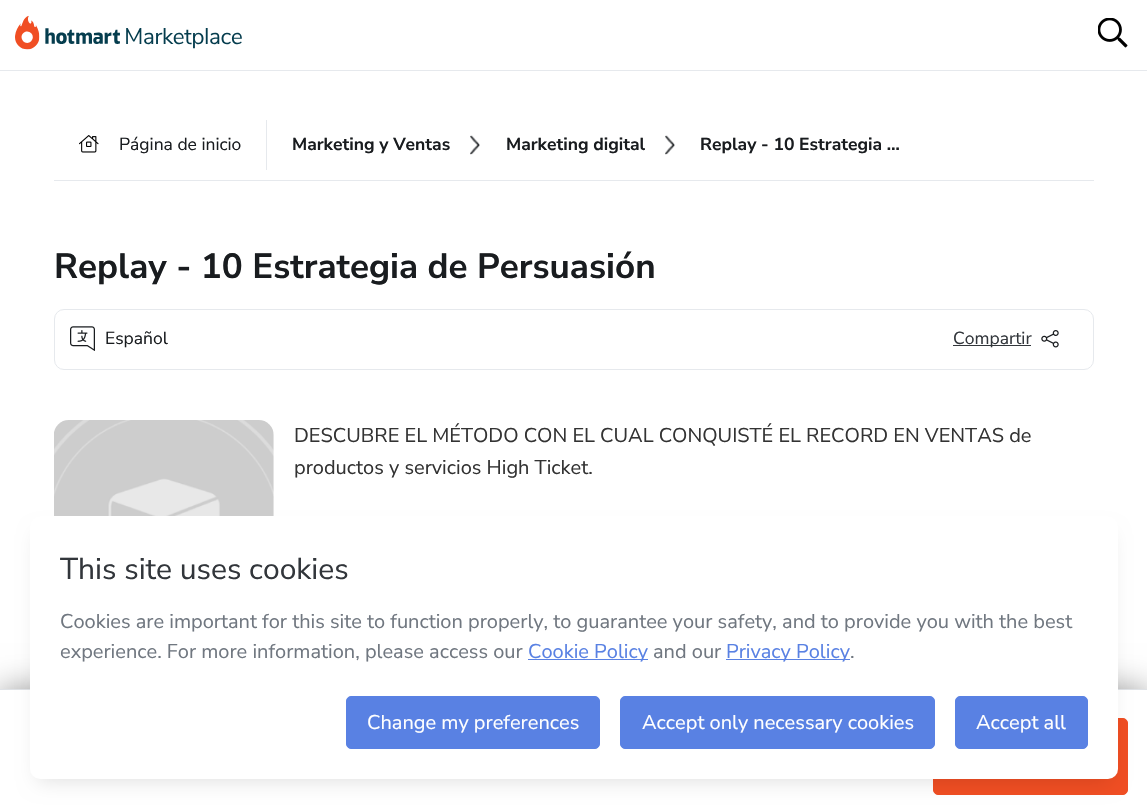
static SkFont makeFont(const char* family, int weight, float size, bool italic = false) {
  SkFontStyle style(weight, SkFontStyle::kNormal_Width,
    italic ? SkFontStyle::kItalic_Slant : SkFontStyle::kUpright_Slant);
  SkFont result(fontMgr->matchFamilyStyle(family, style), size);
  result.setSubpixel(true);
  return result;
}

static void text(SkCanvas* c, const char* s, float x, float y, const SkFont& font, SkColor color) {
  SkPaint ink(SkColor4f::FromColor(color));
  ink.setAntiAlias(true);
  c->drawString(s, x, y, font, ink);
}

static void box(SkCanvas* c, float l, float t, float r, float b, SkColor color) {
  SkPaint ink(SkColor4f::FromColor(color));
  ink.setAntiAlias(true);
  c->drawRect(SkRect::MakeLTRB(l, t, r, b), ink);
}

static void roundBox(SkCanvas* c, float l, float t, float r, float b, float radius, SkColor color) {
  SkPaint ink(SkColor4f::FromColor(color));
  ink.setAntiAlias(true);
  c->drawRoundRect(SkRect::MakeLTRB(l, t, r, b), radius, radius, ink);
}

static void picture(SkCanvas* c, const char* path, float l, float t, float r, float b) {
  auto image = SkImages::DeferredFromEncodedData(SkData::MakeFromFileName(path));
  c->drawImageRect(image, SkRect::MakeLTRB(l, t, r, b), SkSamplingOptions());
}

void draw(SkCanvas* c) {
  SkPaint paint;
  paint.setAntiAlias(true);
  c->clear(0xffffffff);
  box(c, 0, 70, 1147, 71, 0xffe6e9ed);
  picture(c, "img_01.png", 15, 15, 242, 50);
  picture(c, "img_02.png", 1098, 18, 1128, 48);
  box(c, 54, 180, 1094, 181, 0xffe6e9ed);
  box(c, 266, 120, 267, 170, 0xffe6e9ed);
  picture(c, "img_03.png", 79, 135, 99, 153);
  SkFont face1 = makeFont("Nunito Sans", 400, 17.5f);
  text(c, "Página de inicio", 119, 150, face1, 0xff191c1f);
  SkFont face2 = makeFont("Nunito Sans", 700, 17.5f);
  text(c, "Marketing y Ventas", 292, 150, face2, 0xff191c1f);
  picture(c, "img_04.png", 470, 135, 480, 155);
  text(c, "Marketing digital", 506, 150, face2, 0xff191c1f);
  picture(c, "img_04.png", 665, 135, 675, 155);
  text(c, "Replay - 10 Estrategia …", 700, 150, face2, 0xff191c1f);
  SkFont face3 = makeFont("Nunito Sans", 700, 35);
  text(c, "Replay - 10 Estrategia de Persuasión", 54, 278, face3, 0xff191c1f);
  paint.setStyle(SkPaint::kStroke_Style);
  paint.setStrokeWidth(1);
  paint.setColor(0xffe6e9ed);
  c->drawRoundRect(SkRect::MakeLTRB(54.5f, 309.5f, 1093.5f, 369.5f), 9.5f, 9.5f, paint);
  picture(c, "img_05.png", 70, 326, 95, 351);
  text(c, "Español", 105, 344, face1, 0xff191c1f);
  box(c, 953, 345, 1031, 346, 0xff32363b);
  text(c, "Compartir", 953, 344, face1, 0xff32363b);
  picture(c, "img_06.png", 1041, 330, 1059, 348);
  picture(c, "img_07.png", 54, 420, 274, 516);
  SkFont face4 = makeFont("Nunito Sans", 400, 20);
  text(c, "DESCUBRE EL MÉTODO CON EL CUAL CONQUISTÉ EL RECORD EN VENTAS de", 294, 442, face4, 0xff333333);
  text(c, "productos y servicios High Ticket.", 294, 474, face4, 0xff333333);
  paint.setStyle(SkPaint::kFill_Style);
  paint.setColor(0x66000000);
  paint.setMaskFilter(SkMaskFilter::MakeBlur(kNormal_SkBlurStyle, 15.5f));
  c->drawRect(SkRect::MakeLTRB(0, 689, 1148, 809), paint);
  paint.setMaskFilter(nullptr);
  box(c, 0, 690, 1147, 808, 0xffffffff);
  box(c, 0, 689, 1147, 690, 0xffdfe2e6);
  paint.setColor(0xfff04e23);
  c->drawRoundRect(SkRect::MakeLTRB(933.5f, 718.5f, 1127.5f, 794.5f), 4.5f, 4.5f, paint);
  paint.setStyle(SkPaint::kStroke_Style);
  c->drawRoundRect(SkRect::MakeLTRB(933.5f, 718.5f, 1127.5f, 794.5f), 4.5f, 4.5f, paint);
  paint.setStyle(SkPaint::kFill_Style);
  paint.setColor(0x1f000000);
  paint.setMaskFilter(SkMaskFilter::MakeBlur(kNormal_SkBlurStyle, 10));
  c->drawRoundRect(SkRect::MakeLTRB(38, 534, 1110, 781), 2.5f, 2.5f, paint);
  paint.setMaskFilter(nullptr);
  roundBox(c, 30, 516, 1118, 779, 10, 0xffffffff);
  SkFont face5 = makeFont("Nunito Sans", 400, 30);
  text(c, "This site uses cookies", 60, 579, face5, 0xff32363b);
  text(c, "Cookies are important for this site to function properly, to guarantee your safety, and to provide you with the best", 60, 628, face4, 0xff707780);
  text(c, "experience. For more information, please access our", 60, 658, face4, 0xff707780);
  box(c, 528, 659, 648, 660, 0xff5981e3);
  text(c, "Cookie Policy", 528, 658, face4, 0xff5981e3);
  text(c, "and our", 653, 658, face4, 0xff707780);
  box(c, 726, 659, 850, 660, 0xff5981e3);
  text(c, "Privacy Policy", 726, 658, face4, 0xff5981e3);
  text(c, ".", 850, 658, face4, 0xff707780);
  paint.setColor(0xff5981e3);
  c->drawRoundRect(SkRect::MakeLTRB(346.5f, 696.5f, 599.5f, 748.5f), 4.5f, 4.5f, paint);
  paint.setStyle(SkPaint::kStroke_Style);
  c->drawRoundRect(SkRect::MakeLTRB(346.5f, 696.5f, 599.5f, 748.5f), 4.5f, 4.5f, paint);
  text(c, "Change my preferences", 367, 729, face4, 0xffffffff);
  paint.setStyle(SkPaint::kFill_Style);
  c->drawRoundRect(SkRect::MakeLTRB(620.5f, 696.5f, 934.5f, 748.5f), 4.5f, 4.5f, paint);
  paint.setStyle(SkPaint::kStroke_Style);
  c->drawRoundRect(SkRect::MakeLTRB(620.5f, 696.5f, 934.5f, 748.5f), 4.5f, 4.5f, paint);
  text(c, "Accept only necessary cookies", 642, 729, face4, 0xffffffff);
  paint.setStyle(SkPaint::kFill_Style);
  c->drawRoundRect(SkRect::MakeLTRB(955.5f, 696.5f, 1087.5f, 748.5f), 4.5f, 4.5f, paint);
  paint.setStyle(SkPaint::kStroke_Style);
  c->drawRoundRect(SkRect::MakeLTRB(955.5f, 696.5f, 1087.5f, 748.5f), 4.5f, 4.5f, paint);
  text(c, "Accept all", 976, 729, face4, 0xffffffff);
}
